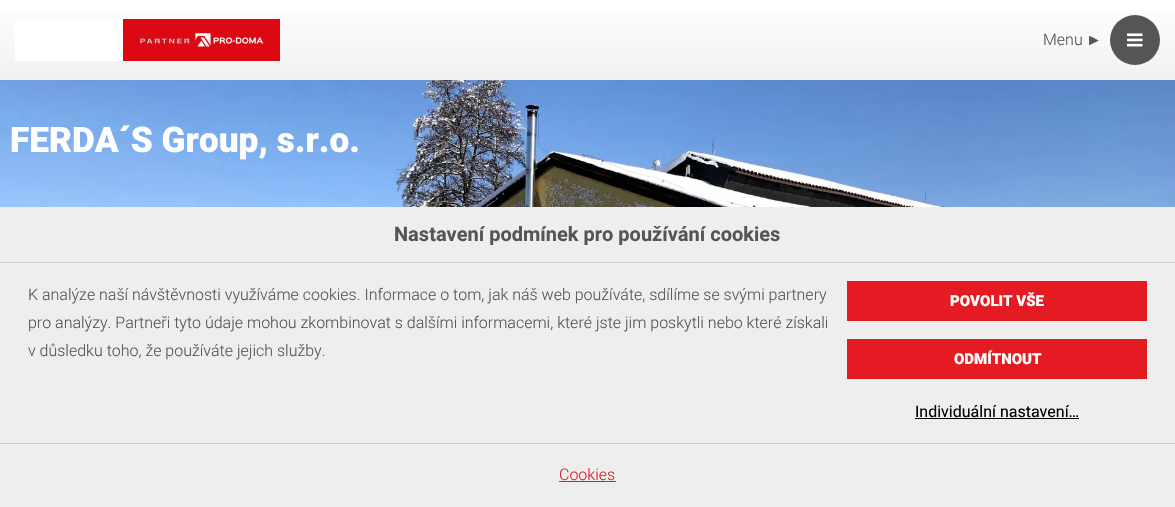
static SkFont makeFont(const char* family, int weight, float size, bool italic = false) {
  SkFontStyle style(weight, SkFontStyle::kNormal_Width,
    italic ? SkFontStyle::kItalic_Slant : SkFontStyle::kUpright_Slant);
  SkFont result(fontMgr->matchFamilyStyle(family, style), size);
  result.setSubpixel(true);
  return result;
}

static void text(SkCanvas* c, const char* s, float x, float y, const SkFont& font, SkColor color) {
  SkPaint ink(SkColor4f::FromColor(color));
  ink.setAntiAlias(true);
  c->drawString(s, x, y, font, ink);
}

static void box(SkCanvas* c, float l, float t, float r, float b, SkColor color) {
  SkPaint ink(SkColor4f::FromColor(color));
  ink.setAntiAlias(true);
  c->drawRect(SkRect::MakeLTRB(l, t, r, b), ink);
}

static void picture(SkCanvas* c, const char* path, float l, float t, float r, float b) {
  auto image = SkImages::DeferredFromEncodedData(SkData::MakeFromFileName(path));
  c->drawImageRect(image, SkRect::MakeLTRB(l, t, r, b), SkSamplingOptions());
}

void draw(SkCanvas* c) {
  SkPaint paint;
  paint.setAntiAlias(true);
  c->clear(0xffffffff);
  {
    const SkColor colors[] = {0xffffffff, 0xfff1f1f1};
    const float stops[] = {0, 1};
    const SkPoint ends[] = {{588, 0}, {588, 80}};
    paint.setShader(SkGradientShader::MakeLinear(ends, colors, stops, 2, SkTileMode::kClamp));
    paint.setAlpha(255);
  }
  c->drawRect(SkRect::MakeLTRB(0, 14, 1175, 80), paint);
  box(c, 15, 19, 123, 61, 0xffffffff);
  picture(c, "img_01.png", 123, 19, 280, 61);
  SkFont face1 = makeFont("Roboto", 300, 16);
  text(c, "Menu", 1043, 45, face1, 0xff555555);
  SkFont face2 = makeFont("Liberation Sans", 400, 16);
  text(c, "►", 1086, 45, face2, 0xff555555);
  paint.setShader(nullptr);
  paint.setColor(0xff555555);
  c->drawCircle(1135, 40, 25, paint);
  picture(c, "img_02.png", 1127, 33, 1143, 47);
  picture(c, "img_03.png", 0, 80, 1175, 207);
  SkFont face3 = makeFont("Roboto", 900, 35.25f);
  text(c, "FERDA´S Group, s.r.o.", 10, 152, face3, 0xffffffff);
  box(c, 0, 207, 1175, 507, 0xffeeeeee);
  box(c, 0, 262, 1175, 263, 0xffcacaca);
  SkFont face4 = makeFont("Roboto", 700, 20);
  text(c, "Nastavení podmínek pro používání cookies", 394, 241, face4, 0xff555555);
  text(c, "K analýze naší návštěvnosti využíváme cookies. Informace o tom, jak náš web používáte, sdílíme se svými partnery", 28, 300, face1, 0xff555555);
  text(c, "pro analýzy. Partneři tyto údaje mohou zkombinovat s dalšími informacemi, které jste jim poskytli nebo které získali", 28, 328, face1, 0xff555555);
  text(c, "v důsledku toho, že používáte jejich služby.", 28, 356, face1, 0xff555555);
  box(c, 847, 281, 1147, 321, 0xffe51b24);
  SkFont face5 = makeFont("Roboto", 900, 15);
  text(c, "POVOLIT VŠE", 950, 306, face5, 0xffffffff);
  box(c, 847, 339, 1147, 379, 0xffe51b24);
  text(c, "ODMÍTNOUT", 954, 364, face5, 0xffffffff);
  SkFont face6 = makeFont("Roboto", 400, 16);
  text(c, "Individuální nastavení…", 915, 417, face6, 0xff000000);
  box(c, 915, 418, 1079, 419, 0xff000000);
  box(c, 0, 443, 1175, 444, 0xffcacaca);
  text(c, "Cookies", 559, 480, face1, 0xffe51b24);
  box(c, 559, 481, 616, 482, 0xffe51b24);
}
